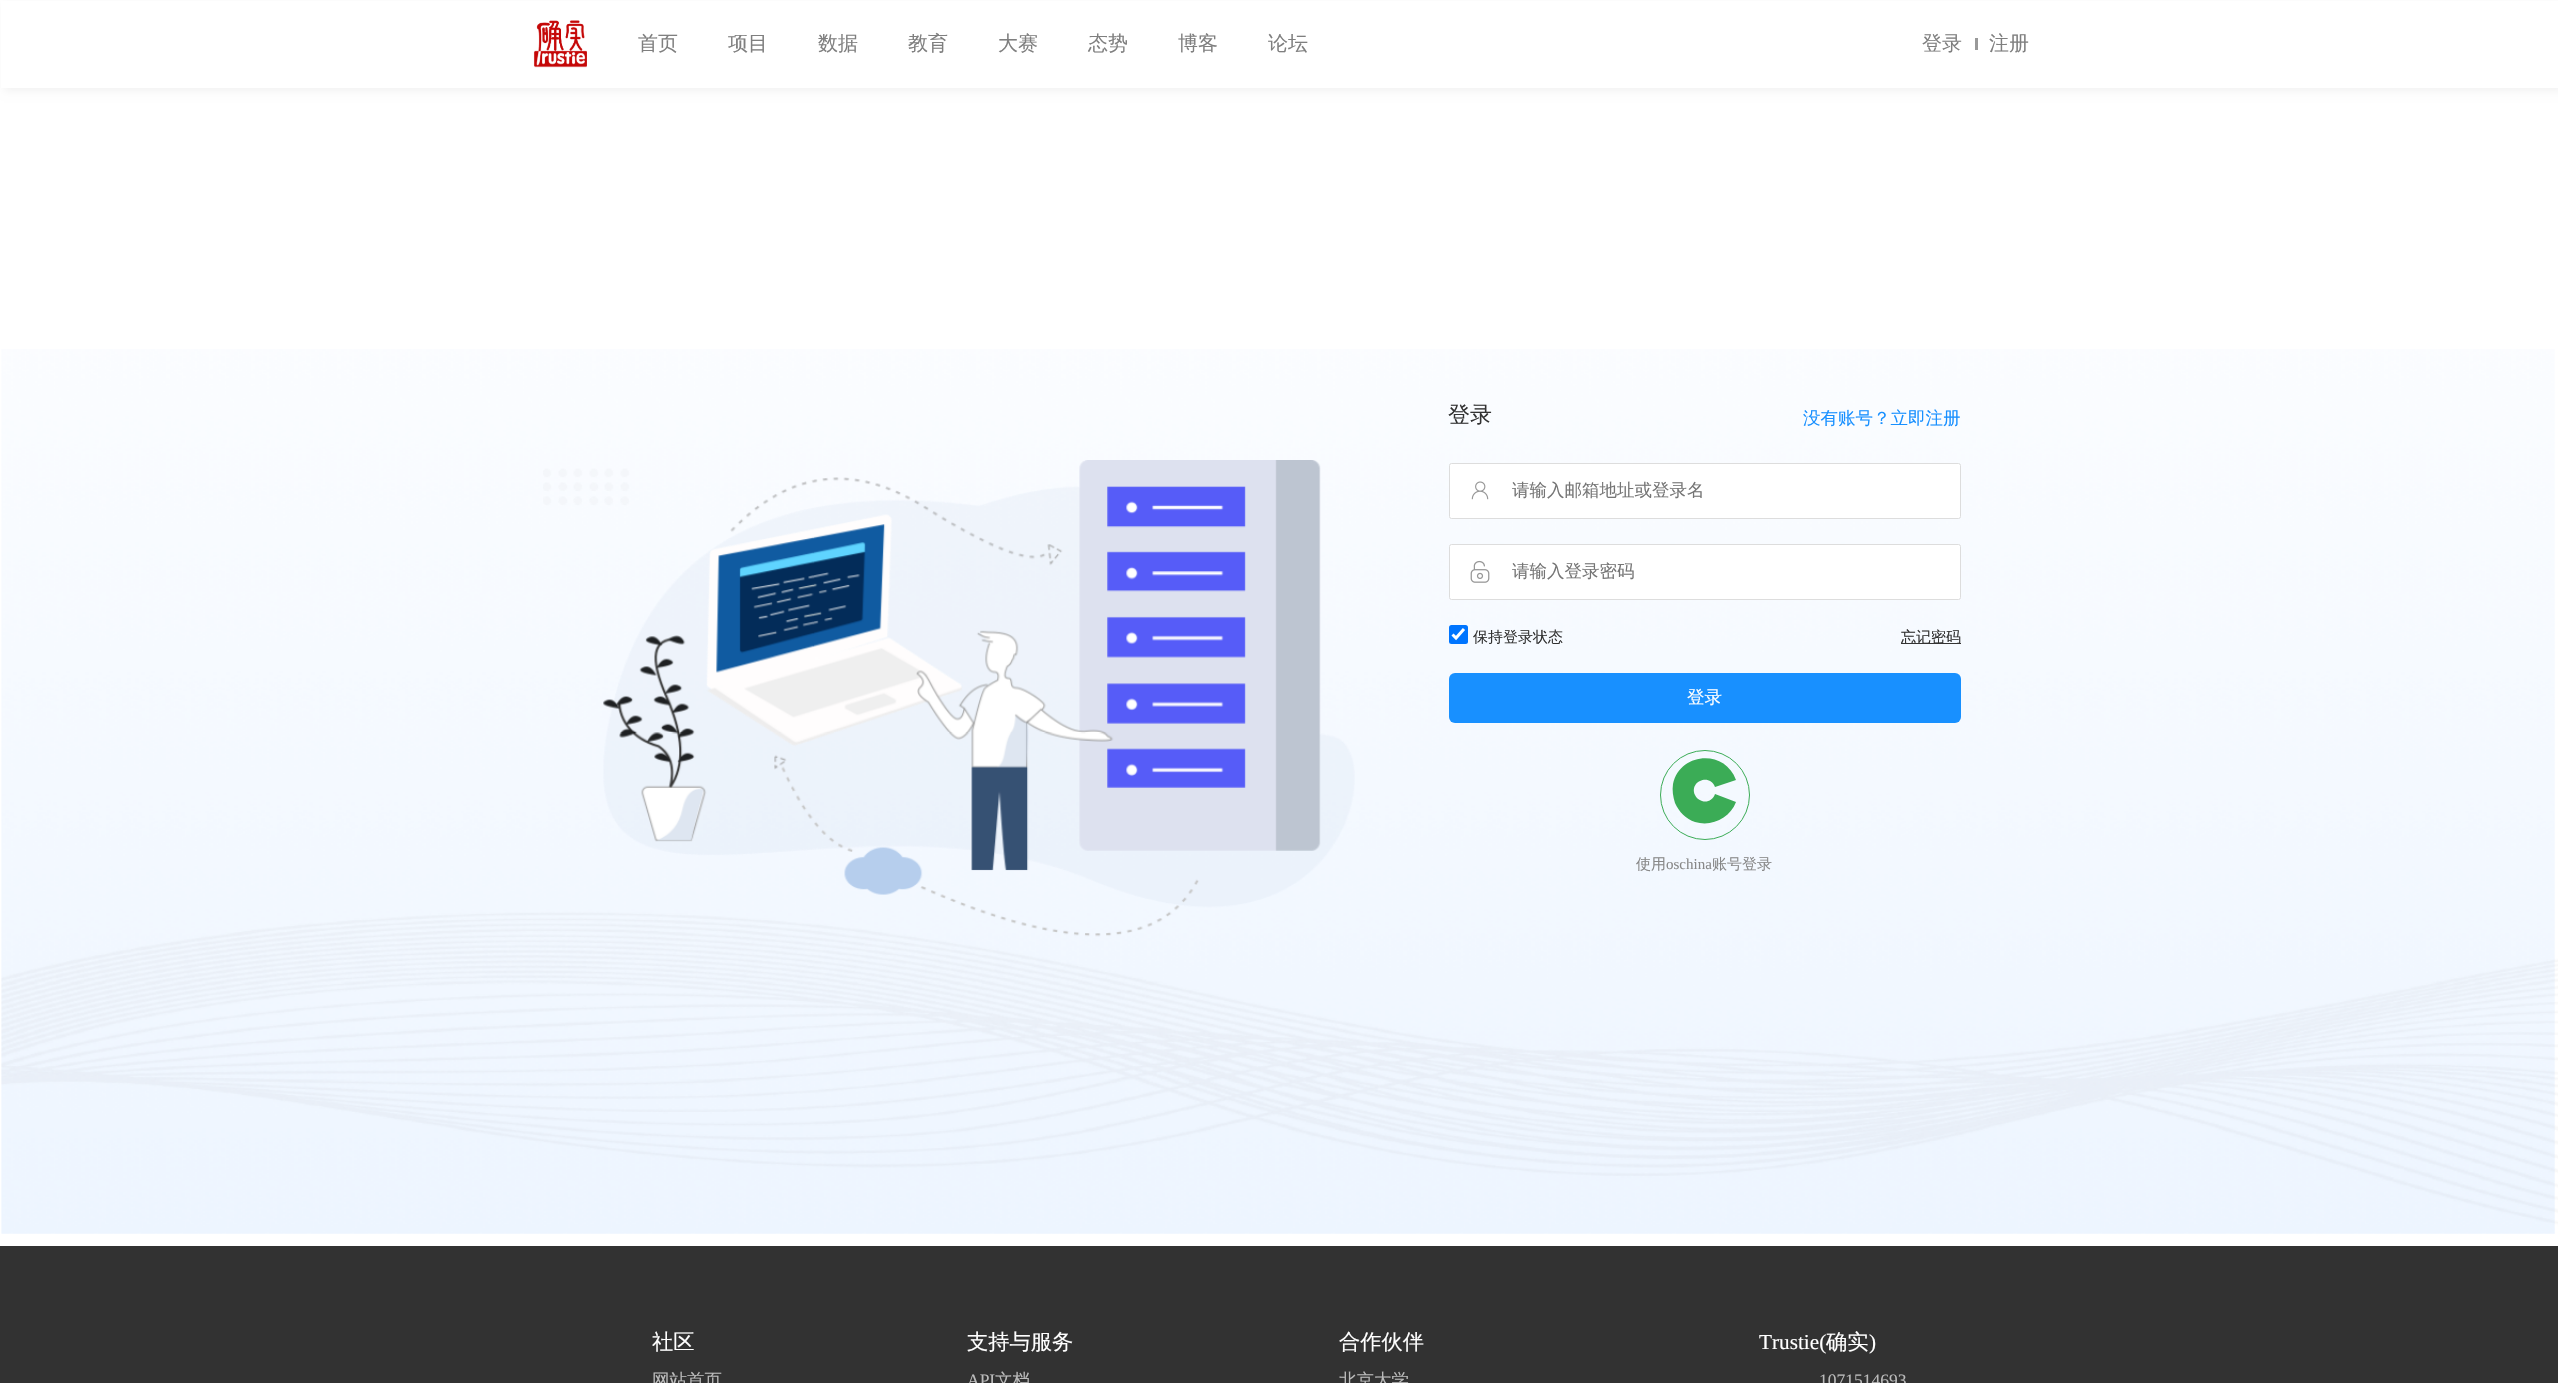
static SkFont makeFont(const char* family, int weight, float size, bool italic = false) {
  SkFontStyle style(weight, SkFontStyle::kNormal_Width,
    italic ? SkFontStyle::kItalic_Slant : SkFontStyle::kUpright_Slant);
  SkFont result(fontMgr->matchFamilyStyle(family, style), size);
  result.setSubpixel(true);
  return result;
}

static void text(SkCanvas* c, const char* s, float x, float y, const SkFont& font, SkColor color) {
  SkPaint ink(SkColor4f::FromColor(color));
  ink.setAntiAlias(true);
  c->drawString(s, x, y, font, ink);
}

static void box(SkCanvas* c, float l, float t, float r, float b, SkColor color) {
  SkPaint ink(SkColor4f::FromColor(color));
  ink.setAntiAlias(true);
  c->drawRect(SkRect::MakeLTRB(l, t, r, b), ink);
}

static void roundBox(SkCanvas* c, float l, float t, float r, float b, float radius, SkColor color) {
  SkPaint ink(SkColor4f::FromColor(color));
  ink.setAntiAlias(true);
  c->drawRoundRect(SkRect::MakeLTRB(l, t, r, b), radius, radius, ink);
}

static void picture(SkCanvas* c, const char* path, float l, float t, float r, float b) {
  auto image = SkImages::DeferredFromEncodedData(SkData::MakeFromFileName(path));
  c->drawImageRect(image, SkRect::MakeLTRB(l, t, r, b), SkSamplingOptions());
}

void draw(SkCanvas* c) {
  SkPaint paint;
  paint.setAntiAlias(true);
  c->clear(0xffffffff);
  paint.setColor(0x0d000000);
  paint.setMaskFilter(SkMaskFilter::MakeBlur(kNormal_SkBlurStyle, 4));
  c->drawRect(SkRect::MakeLTRB(4, 4, 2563, 91), paint);
  paint.setMaskFilter(nullptr);
  box(c, 1, 1, 2558, 88, 0xffffffff);
  picture(c, "img_01.png", 533, 20, 587, 68);
  SkFont face1 = makeFont("WenQuanYi Zen Hei", 500, 20);
  text(c, "首页", 638, 50, face1, 0xff7f7f7f);
  text(c, "项目", 728, 50, face1, 0xff7f7f7f);
  text(c, "数据", 818, 50, face1, 0xff7f7f7f);
  text(c, "教育", 908, 50, face1, 0xff7f7f7f);
  text(c, "大赛", 998, 50, face1, 0xff7f7f7f);
  text(c, "态势", 1088, 50, face1, 0xff7f7f7f);
  text(c, "博客", 1178, 50, face1, 0xff7f7f7f);
  text(c, "论坛", 1268, 50, face1, 0xff7f7f7f);
  text(c, "登录", 1922, 50, face1, 0xff7f7f7f);
  box(c, 1975, 38, 1978, 50, 0xff999999);
  text(c, "注册", 1989, 50, face1, 0xff7f7f7f);
  picture(c, "img_02.png", 1, 349, 2558, 1234);
  picture(c, "img_03.png", 543, 460, 1355, 937);
  SkFont face2 = makeFont("WenQuanYi Zen Hei", 500, 22);
  text(c, "登录", 1448, 422, face2, 0xff333333);
  SkFont face3 = makeFont("WenQuanYi Zen Hei", 500, 17.5f);
  text(c, "没有账号？立即注册", 1803, 424, face3, 0xff1890ff);
  paint.setColor(0xffffffff);
  c->drawRoundRect(SkRect::MakeLTRB(1449.5f, 463.5f, 1960.5f, 518.5f), 2, 2, paint);
  paint.setStyle(SkPaint::kStroke_Style);
  paint.setStrokeWidth(1);
  paint.setColor(0xffdddddd);
  c->drawRoundRect(SkRect::MakeLTRB(1449.5f, 463.5f, 1960.5f, 518.5f), 2, 2, paint);
  picture(c, "img_04.png", 1471, 481, 1489, 500);
  text(c, "请输入邮箱地址或登录名", 1512, 496, face3, 0xff757575);
  paint.setStyle(SkPaint::kFill_Style);
  paint.setColor(0xffffffff);
  c->drawRoundRect(SkRect::MakeLTRB(1449.5f, 544.5f, 1960.5f, 599.5f), 2, 2, paint);
  paint.setStyle(SkPaint::kStroke_Style);
  paint.setColor(0xffdddddd);
  c->drawRoundRect(SkRect::MakeLTRB(1449.5f, 544.5f, 1960.5f, 599.5f), 2, 2, paint);
  picture(c, "img_05.png", 1470, 560, 1490, 583);
  text(c, "请输入登录密码", 1512, 577, face3, 0xff757575);
  roundBox(c, 1449, 625, 1468, 644, 2.5f, 0xff0075ff);
  paint.setStrokeWidth(3);
  paint.setColor(0xffffffff);
  c->drawPath(SkPathBuilder().moveTo(1452.5f, 634.5f).lineTo(1456, 638).lineTo(1464, 629).detach(), paint);
  SkFont face4 = makeFont("WenQuanYi Zen Hei", 500, 15);
  text(c, "保持登录状态", 1473, 642, face4, 0xff333333);
  box(c, 1901, 643, 1961, 644, 0xff333333);
  text(c, "忘记密码", 1901, 642, face4, 0xff333333);
  roundBox(c, 1449, 673, 1961, 723, 6, 0xff1890ff);
  text(c, "登录", 1687, 703, face3, 0xffffffff);
  paint.setStrokeWidth(1);
  paint.setColor(0xff3bac56);
  c->drawCircle(1705, 795, 44.5f, paint);
  paint.setStyle(SkPaint::kFill_Style);
  c->drawPath(SkPathBuilder().moveTo(1736, 802).cubicTo(1730, 818, 1712, 827, 1695, 822).cubicTo(1686, 819, 1679, 812, 1675, 803).cubicTo(1673, 797, 1672, 790, 1673, 784).cubicTo(1680, 752, 1725, 749, 1736, 780).lineTo(1715, 787).cubicTo(1710, 773, 1689, 781, 1695, 795).cubicTo(1696, 798, 1699, 800, 1702, 801).cubicTo(1707, 803, 1713, 800, 1715, 794).close().detach(), paint);
  text(c, "使用", 1636, 869, face4, 0xff888888);
  SkFont face5 = makeFont("Liberation Serif", 400, 15);
  text(c, "oschina", 1666, 869, face5, 0xff888888);
  text(c, "账号登录", 1712, 869, face4, 0xff888888);
  box(c, 0, 1246, 2558, 1383, 0xff323232);
  SkFont face6 = makeFont("WenQuanYi Zen Hei", 500, 21.25f);
  text(c, "社区", 652, 1349, face6, 0xffffffff);
  text(c, "网站首页", 652, 1386, face3, 0xffbbbbbb);
  text(c, "支持与服务", 967, 1349, face6, 0xffffffff);
  SkFont face7 = makeFont("Liberation Serif", 400, 17.5f);
  text(c, "API", 967, 1386, face7, 0xffbbbbbb);
  text(c, "文档", 995, 1386, face3, 0xffbbbbbb);
  text(c, "合作伙伴", 1339, 1349, face6, 0xffffffff);
  text(c, "北京大学", 1339, 1386, face3, 0xffbbbbbb);
  SkFont face8 = makeFont("Liberation Serif", 400, 21.25f);
  text(c, "Trustie(", 1759, 1349, face8, 0xffffffff);
  text(c, "确实", 1826, 1349, face6, 0xffffffff);
  text(c, ")", 1869, 1349, face8, 0xffffffff);
  text(c, "1071514693", 1819, 1386, face7, 0xffbbbbbb);
}
